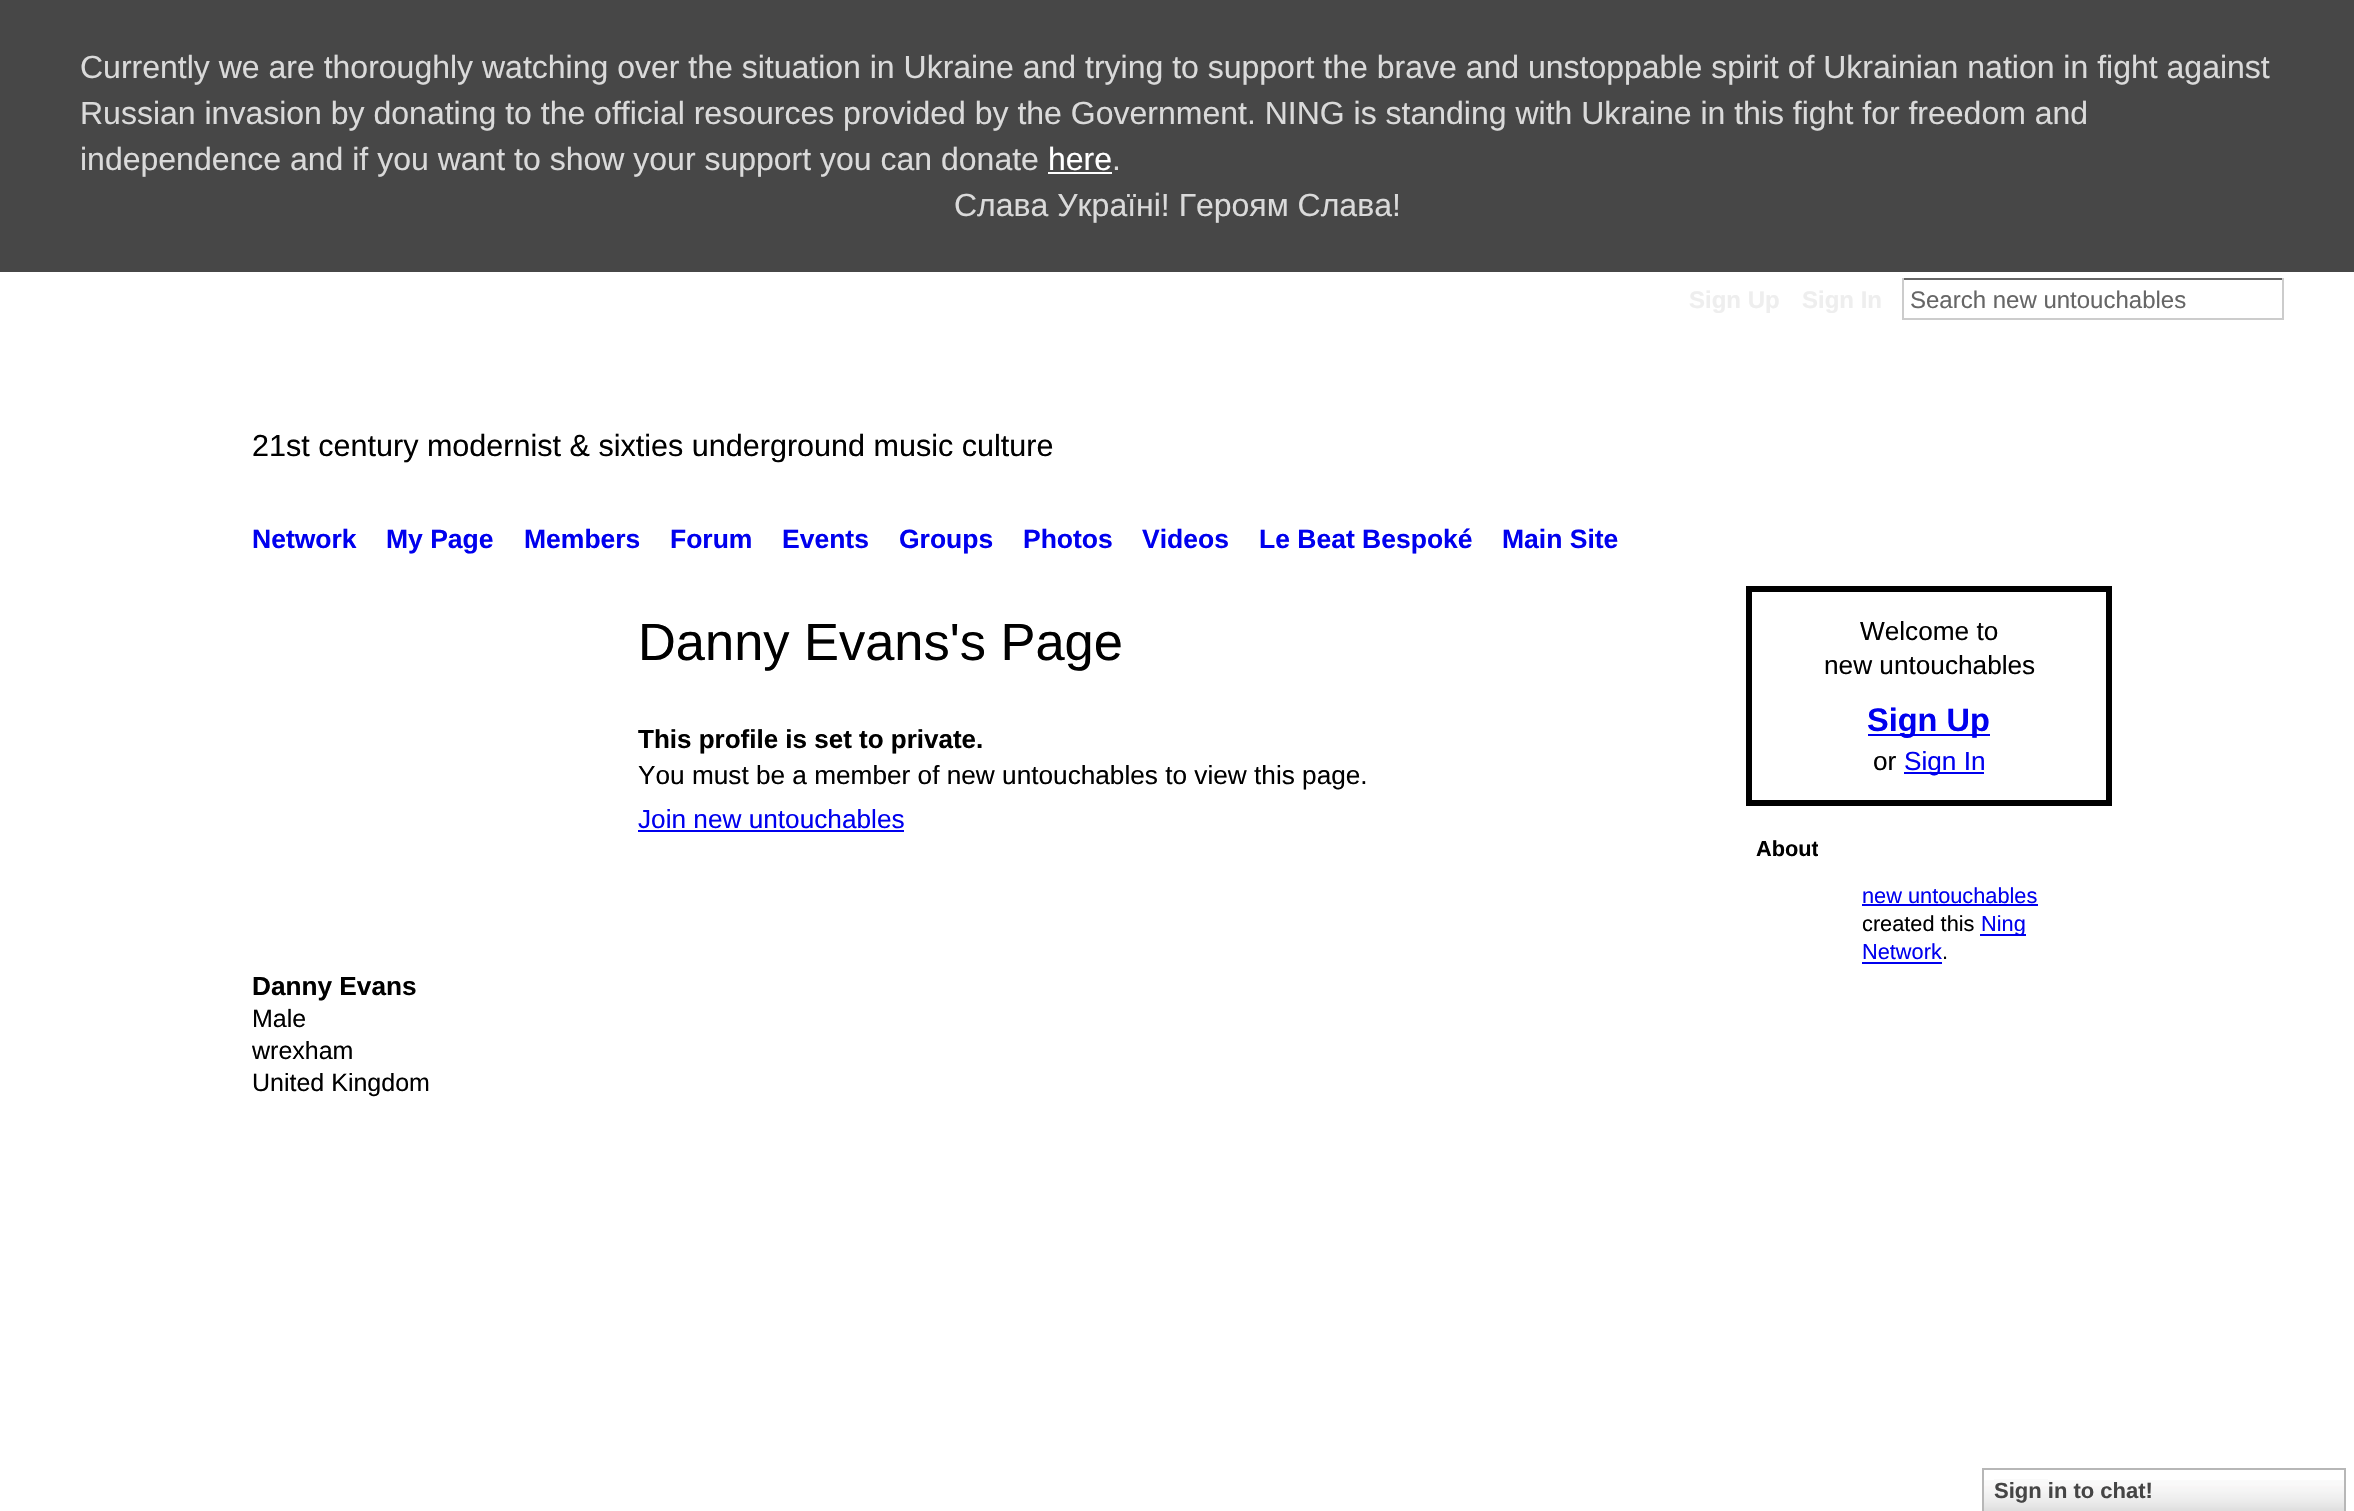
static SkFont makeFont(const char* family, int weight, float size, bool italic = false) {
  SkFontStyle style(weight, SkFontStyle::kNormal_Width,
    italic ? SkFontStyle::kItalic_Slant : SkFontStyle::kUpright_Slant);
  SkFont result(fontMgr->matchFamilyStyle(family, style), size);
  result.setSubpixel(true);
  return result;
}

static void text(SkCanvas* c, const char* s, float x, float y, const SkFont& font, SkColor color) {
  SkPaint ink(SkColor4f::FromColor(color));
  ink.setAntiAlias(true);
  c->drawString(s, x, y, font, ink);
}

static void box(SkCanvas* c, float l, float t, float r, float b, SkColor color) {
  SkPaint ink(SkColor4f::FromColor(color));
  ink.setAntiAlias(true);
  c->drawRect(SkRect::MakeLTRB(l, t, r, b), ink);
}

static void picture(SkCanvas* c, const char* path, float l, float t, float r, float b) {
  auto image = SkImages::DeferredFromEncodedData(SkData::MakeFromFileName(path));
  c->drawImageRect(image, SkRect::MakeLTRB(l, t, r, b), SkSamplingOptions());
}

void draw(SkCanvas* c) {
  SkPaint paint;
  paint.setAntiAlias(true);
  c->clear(0xffffffff);
  box(c, 0, 0, 2354, 272, 0xff474747);
  SkFont face1 = makeFont("Liberation Sans", 400, 32);
  text(c, "Currently we are thoroughly watching over the situation in Ukraine and trying to support the brave and unstoppable spirit of Ukrainian nation in fight against", 80, 78, face1, 0xffdadada);
  text(c, "Russian invasion by donating to the official resources provided by the Government. NING is standing with Ukraine in this fight for freedom and", 80, 124, face1, 0xffdadada);
  text(c, "independence and if you want to show your support you can donate", 80, 170, face1, 0xffdadada);
  text(c, "here", 1048, 170, face1, 0xffffffff);
  box(c, 1048, 172, 1112, 174, 0xffffffff);
  text(c, ".", 1112, 170, face1, 0xffdadada);
  text(c, "Слава Україні! Героям Слава!", 954, 216, face1, 0xffdadada);
  SkFont face2 = makeFont("Liberation Sans", 700, 24);
  text(c, "Sign Up", 1689, 308, face2, 0xffeeeeee);
  text(c, "Sign In", 1802, 308, face2, 0xffeeeeee);
  box(c, 1902, 278, 2284, 280, 0xff666666);
  box(c, 2282, 278, 2284, 320, 0xffcccccc);
  box(c, 1902, 318, 2284, 320, 0xffcccccc);
  box(c, 1902, 278, 1904, 320, 0xffcccccc);
  SkFont face3 = makeFont("Liberation Sans", 400, 24);
  text(c, "Search new untouchables", 1910, 308, face3, 0xff666666);
  SkFont face4 = makeFont("Liberation Sans", 400, 30.55f);
  text(c, "21st century modernist & sixties underground music culture", 252, 456, face4, 0xff000000);
  SkFont face5 = makeFont("Liberation Sans", 700, 26.5f);
  text(c, "Network", 252, 548, face5, 0xff0000ee);
  text(c, "My Page", 386, 548, face5, 0xff0000ee);
  text(c, "Members", 524, 548, face5, 0xff0000ee);
  text(c, "Forum", 670, 548, face5, 0xff0000ee);
  text(c, "Events", 782, 548, face5, 0xff0000ee);
  text(c, "Groups", 899, 548, face5, 0xff0000ee);
  text(c, "Photos", 1023, 548, face5, 0xff0000ee);
  text(c, "Videos", 1142, 548, face5, 0xff0000ee);
  text(c, "Le Beat Bespoké", 1259, 548, face5, 0xff0000ee);
  text(c, "Main Site", 1502, 548, face5, 0xff0000ee);
  SkFont face6 = makeFont("Liberation Sans", 400, 52.4f);
  text(c, "Danny Evans's Page", 638, 660, face6, 0xff000000);
  SkFont face7 = makeFont("Liberation Sans", 700, 26);
  text(c, "This profile is set to private.", 638, 748, face7, 0xff000000);
  SkFont face8 = makeFont("Liberation Sans", 400, 26.2f);
  text(c, "You must be a member of new untouchables to view this page.", 638, 784, face8, 0xff000000);
  text(c, "Join new untouchables", 638, 828, face8, 0xff0000ee);
  box(c, 638, 830, 904, 832, 0xff0000ee);
  SkFont face9 = makeFont("Liberation Sans", 700, 26.2f);
  text(c, "Danny Evans", 252, 995, face9, 0xff000000);
  SkFont face10 = makeFont("Liberation Sans", 400, 25);
  text(c, "Male", 252, 1027, face10, 0xff000000);
  text(c, "wrexham", 252, 1059, face10, 0xff000000);
  text(c, "United Kingdom", 252, 1091, face10, 0xff000000);
  paint.setStyle(SkPaint::kStroke_Style);
  paint.setStrokeWidth(6);
  paint.setColor(0xff000000);
  c->drawRect(SkRect::MakeLTRB(1749, 589, 2109, 803), paint);
  text(c, "Welcome to", 1860, 640, face8, 0xff000000);
  text(c, "new untouchables", 1824, 674, face8, 0xff000000);
  box(c, 1868, 734, 1990, 736, 0xff0000ee);
  SkFont face11 = makeFont("Liberation Sans", 700, 32.5f);
  text(c, "Sign Up", 1867, 731, face11, 0xff0000ee);
  text(c, "or", 1873, 770, face8, 0xff000000);
  box(c, 1904, 772, 1984, 774, 0xff0000ee);
  text(c, "Sign In", 1904, 770, face8, 0xff0000ee);
  c->save();
  c->clipRect(SkRect::MakeLTRB(1756, 834, 1818, 862));
  SkFont face12 = makeFont("Liberation Sans", 700, 21.75f);
  text(c, "About", 1756, 856, face12, 0xff000000);
  c->restore();
  SkFont face13 = makeFont("Liberation Sans", 400, 21.75f);
  text(c, "new untouchables", 1862, 903, face13, 0xff0000ee);
  box(c, 1862, 904, 2038, 906, 0xff0000ee);
  text(c, "created this", 1862, 931, face13, 0xff000000);
  box(c, 1980, 934, 2026, 936, 0xff0000ee);
  text(c, "Ning", 1981, 931, face13, 0xff0000ee);
  text(c, "Network", 1862, 959, face13, 0xff0000ee);
  box(c, 1862, 962, 1942, 964, 0xff0000ee);
  text(c, ".", 1942, 959, face13, 0xff000000);
  picture(c, "img_01.png", 1984, 1480, 2344, 1511);
  paint.setStrokeWidth(2);
  paint.setColor(0xffb7b7b7);
  c->drawRect(SkRect::MakeLTRB(1983, 1469, 2345, 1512), paint);
  box(c, 1994, 1479, 2048, 1480, 0xfffafafa);
  SkFont face14 = makeFont("Liberation Sans", 700, 22);
  text(c, "Sign in to chat!", 1994, 1498, face14, 0xff454545);
}
